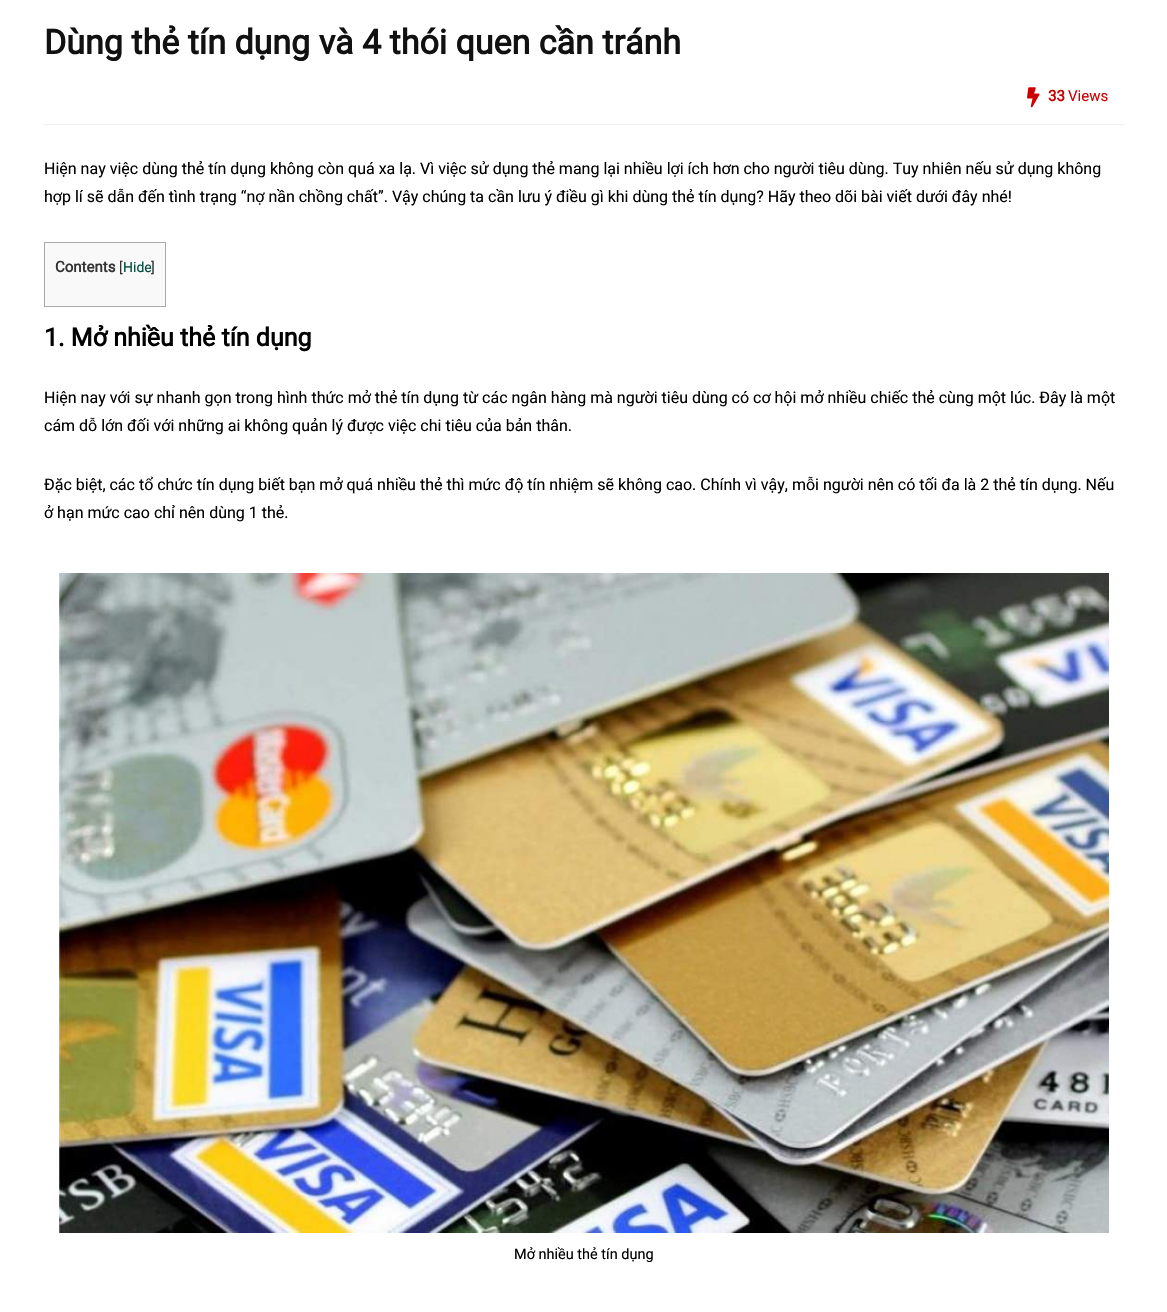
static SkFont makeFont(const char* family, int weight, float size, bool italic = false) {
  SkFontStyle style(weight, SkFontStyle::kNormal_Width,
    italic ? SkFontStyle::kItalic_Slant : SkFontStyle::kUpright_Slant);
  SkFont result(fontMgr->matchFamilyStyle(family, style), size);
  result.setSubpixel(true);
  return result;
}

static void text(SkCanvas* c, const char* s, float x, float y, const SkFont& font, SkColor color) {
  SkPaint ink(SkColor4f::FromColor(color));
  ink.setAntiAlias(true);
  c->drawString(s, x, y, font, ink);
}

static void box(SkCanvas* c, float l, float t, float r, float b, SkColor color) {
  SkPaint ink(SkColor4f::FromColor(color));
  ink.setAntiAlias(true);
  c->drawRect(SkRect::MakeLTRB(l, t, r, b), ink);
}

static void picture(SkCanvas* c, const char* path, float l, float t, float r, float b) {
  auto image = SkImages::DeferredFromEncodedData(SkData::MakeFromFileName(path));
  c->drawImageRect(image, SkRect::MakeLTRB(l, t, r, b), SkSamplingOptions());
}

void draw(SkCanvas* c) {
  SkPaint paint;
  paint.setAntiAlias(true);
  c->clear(0xffffffff);
  SkFont face1 = makeFont("Roboto", 700, 34);
  text(c, "Dùng thẻ tín dụng và 4 thói quen cần tránh", 44, 54, face1, 0xff111111);
  box(c, 44, 124, 1124, 125, 0xfff0f0f0);
  picture(c, "img_01.png", 1027, 87, 1040, 108);
  SkFont face2 = makeFont("Roboto", 700, 15);
  text(c, "33", 1048, 101, face2, 0xffcc0000);
  SkFont face3 = makeFont("Roboto", 400, 15);
  text(c, "Views", 1068, 101, face3, 0xffcc0000);
  SkFont face4 = makeFont("Roboto", 400, 16);
  text(c, "Hiện nay việc dùng thẻ tín dụng không còn quá xa lạ. Vì việc sử dụng thẻ mang lại nhiều lợi ích hơn cho người tiêu dùng. Tuy nhiên nếu sử dụng không", 44, 174, face4, 0xff000000);
  text(c, "hợp lí sẽ dẫn đến tình trạng “nợ nần chồng chất”. Vậy chúng ta cần lưu ý điều gì khi dùng thẻ tín dụng? Hãy theo dõi bài viết dưới đây nhé!", 44, 202, face4, 0xff000000);
  paint.setColor(0xfff9f9f9);
  c->drawRect(SkRect::MakeLTRB(44.5f, 242.5f, 165.5f, 306.5f), paint);
  paint.setStyle(SkPaint::kStroke_Style);
  paint.setStrokeWidth(1);
  paint.setColor(0xffaaaaaa);
  c->drawRect(SkRect::MakeLTRB(44.5f, 242.5f, 165.5f, 306.5f), paint);
  text(c, "Contents", 55, 272, face2, 0xff333333);
  SkFont face5 = makeFont("Roboto", 400, 14);
  text(c, "[", 119, 272, face5, 0xff333333);
  text(c, "Hide", 123, 272, face5, 0xff004c3f);
  text(c, "]", 151, 272, face5, 0xff333333);
  SkFont face6 = makeFont("Roboto", 700, 25);
  text(c, "1. Mở nhiều thẻ tín dụng", 44, 346, face6, 0xff000000);
  text(c, "Hiện nay với sự nhanh gọn trong hình thức mở thẻ tín dụng từ các ngân hàng mà người tiêu dùng có cơ hội mở nhiều chiếc thẻ cùng một lúc. Đây là một", 44, 403, face4, 0xff000000);
  text(c, "cám dỗ lớn đối với những ai không quản lý được việc chi tiêu của bản thân.", 44, 431, face4, 0xff000000);
  text(c, "Đặc biệt, các tổ chức tín dụng biết bạn mở quá nhiều thẻ thì mức độ tín nhiệm sẽ không cao. Chính vì vậy, mỗi người nên có tối đa là 2 thẻ tín dụng. Nếu", 44, 490, face4, 0xff000000);
  text(c, "ở hạn mức cao chỉ nên dùng 1 thẻ.", 44, 518, face4, 0xff000000);
  picture(c, "img_02.png", 59, 573, 1109, 1233);
  SkFont face7 = makeFont("Roboto", 400, 14.5f);
  text(c, "Mở nhiều thẻ tín dụng", 514, 1259, face7, 0xff000000);
}
